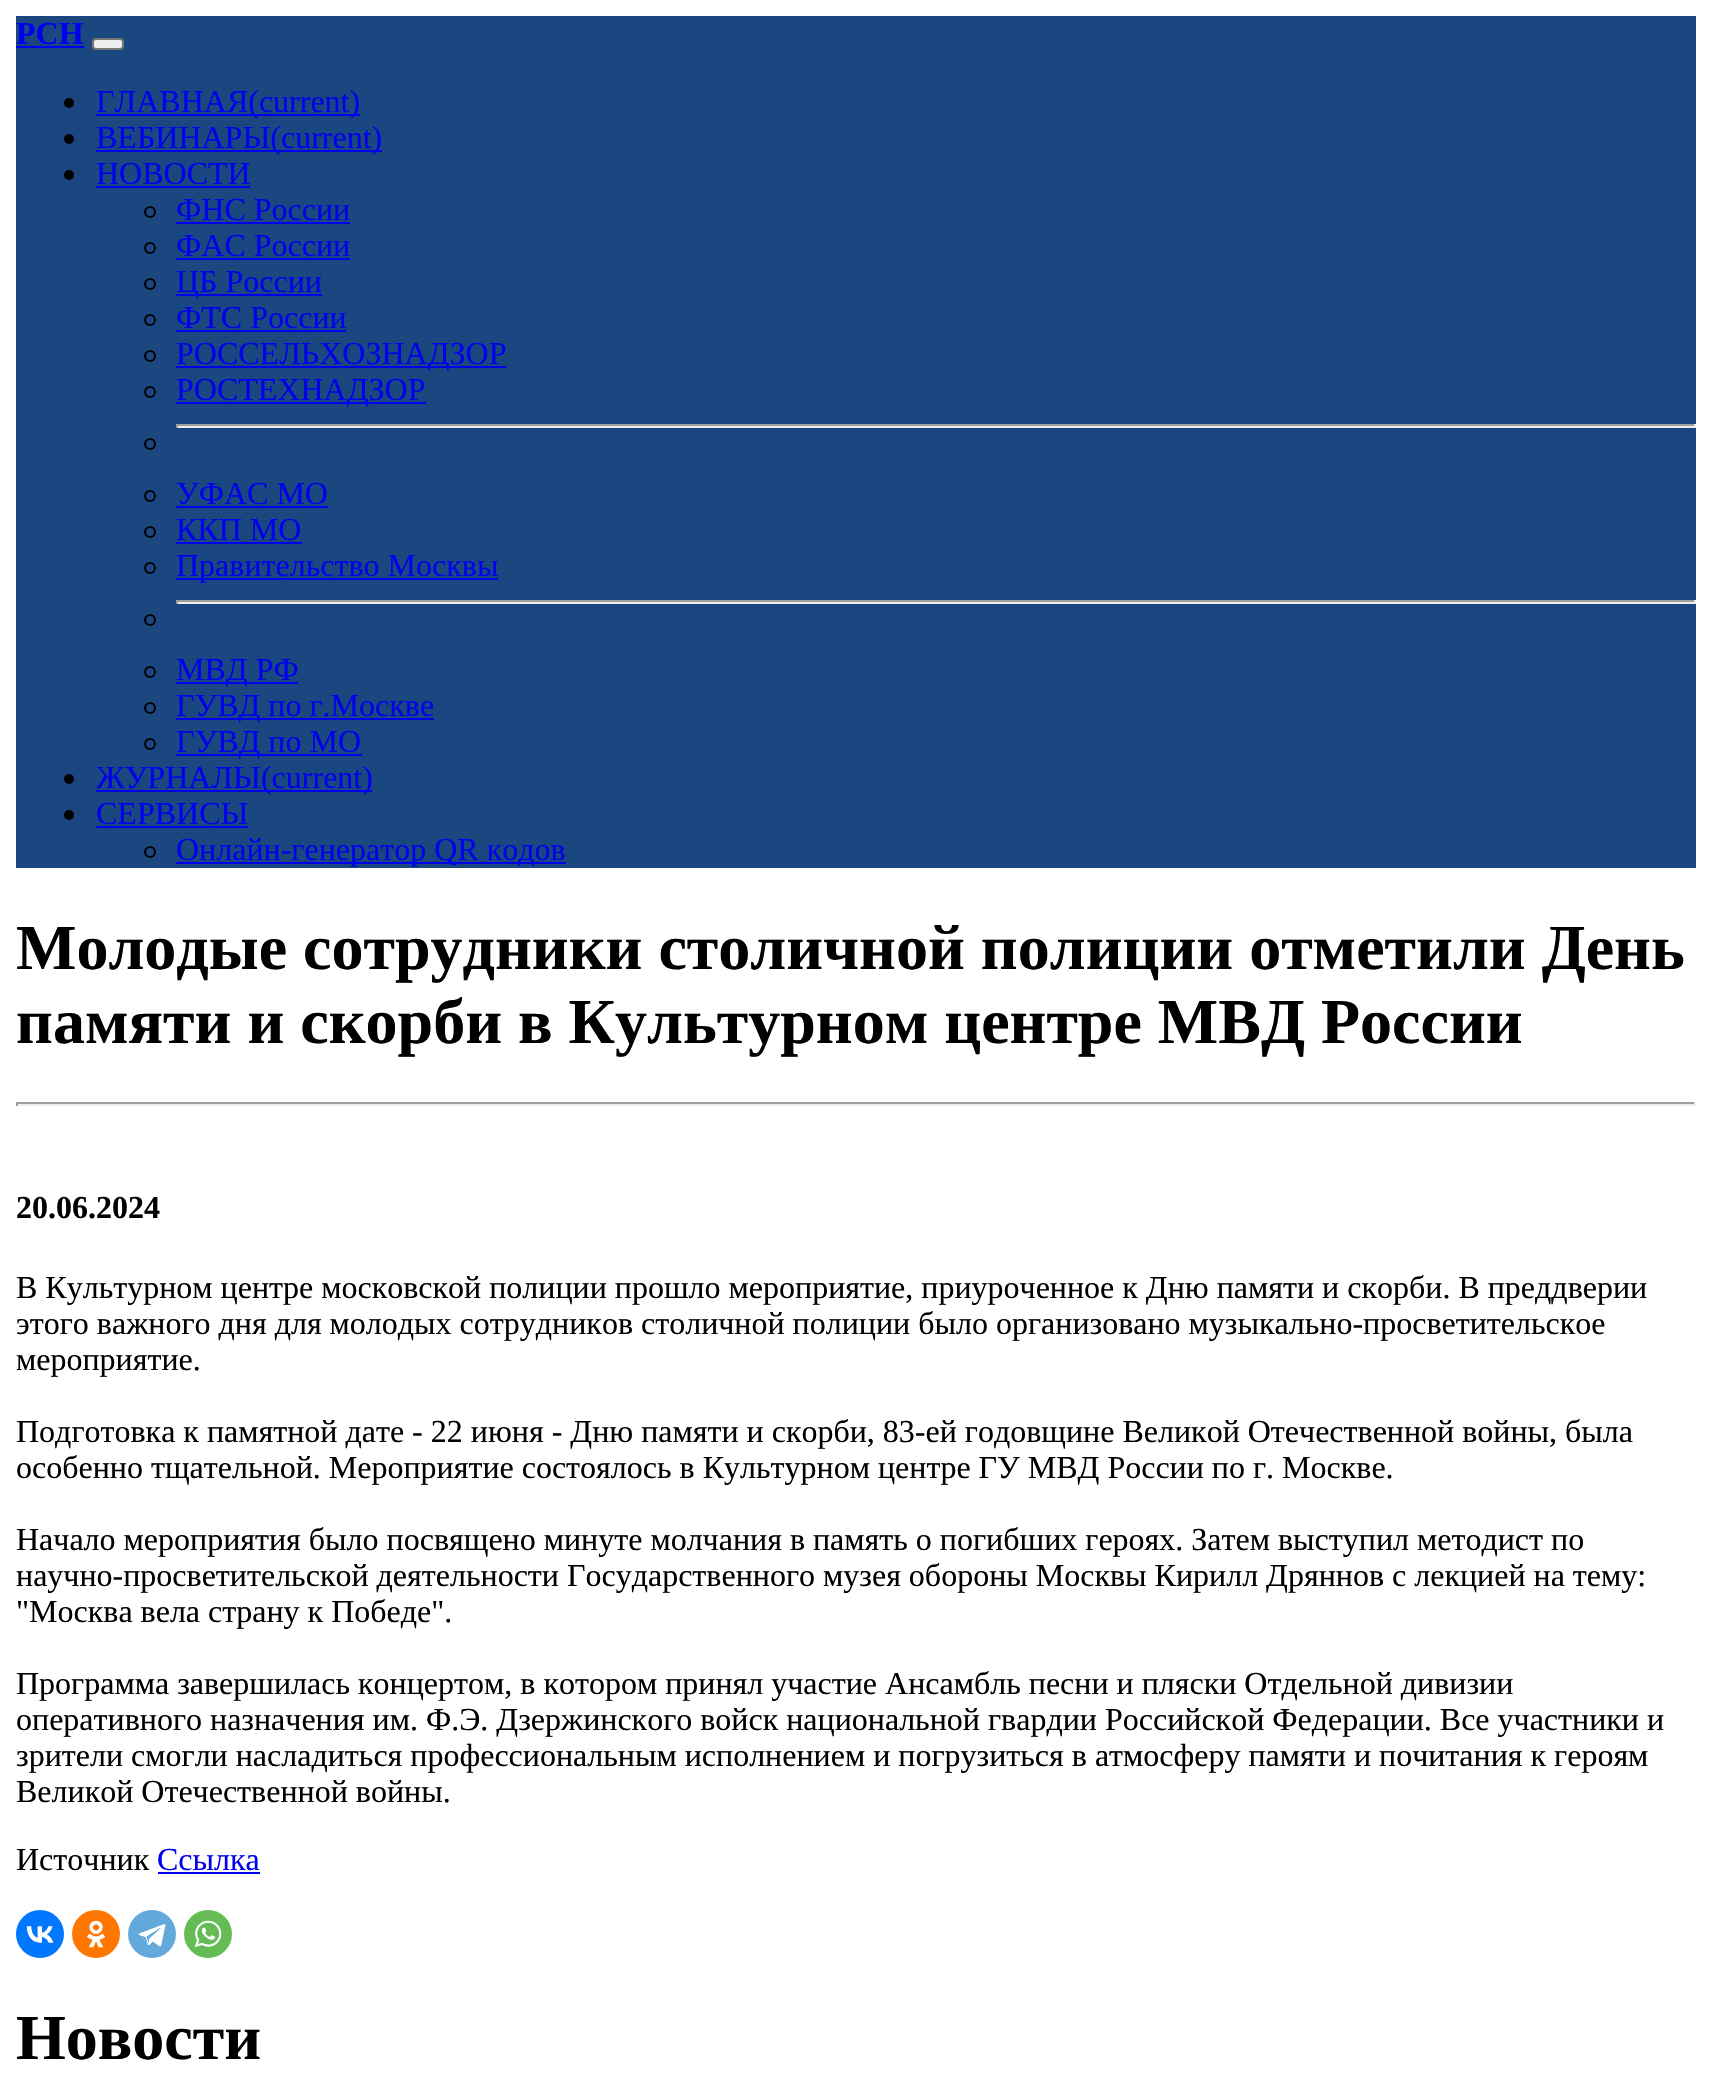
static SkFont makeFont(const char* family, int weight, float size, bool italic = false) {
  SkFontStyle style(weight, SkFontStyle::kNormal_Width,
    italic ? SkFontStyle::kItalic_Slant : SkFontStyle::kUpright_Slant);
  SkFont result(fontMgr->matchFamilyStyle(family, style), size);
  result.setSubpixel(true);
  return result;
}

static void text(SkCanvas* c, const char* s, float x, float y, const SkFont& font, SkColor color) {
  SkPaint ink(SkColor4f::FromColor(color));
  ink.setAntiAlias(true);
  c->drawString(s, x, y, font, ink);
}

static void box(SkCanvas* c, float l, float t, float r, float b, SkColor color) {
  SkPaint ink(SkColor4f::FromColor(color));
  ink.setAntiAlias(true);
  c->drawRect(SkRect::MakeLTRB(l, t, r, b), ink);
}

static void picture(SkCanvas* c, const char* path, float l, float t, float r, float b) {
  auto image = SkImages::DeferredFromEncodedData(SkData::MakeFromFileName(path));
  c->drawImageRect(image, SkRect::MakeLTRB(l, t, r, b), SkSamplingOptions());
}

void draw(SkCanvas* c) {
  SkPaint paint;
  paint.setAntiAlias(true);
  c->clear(0xffffffff);
  box(c, 16, 16, 1696, 868, 0xff1a4780);
  SkFont face1 = makeFont("Liberation Serif", 700, 32);
  text(c, "РСН", 16, 44, face1, 0xff0000ee);
  box(c, 16, 46, 84, 48, 0xff0000ee);
  paint.setColor(0xffefefef);
  c->drawRoundRect(SkRect::MakeLTRB(93, 39, 123, 49), 3, 3, paint);
  paint.setStyle(SkPaint::kStroke_Style);
  paint.setStrokeWidth(2);
  paint.setColor(0xff767676);
  c->drawRoundRect(SkRect::MakeLTRB(93, 39, 123, 49), 3, 3, paint);
  paint.setStyle(SkPaint::kFill_Style);
  paint.setColor(0xff000000);
  c->drawCircle(69, 103, 5, paint);
  box(c, 96, 114, 360, 116, 0xff0000ee);
  SkFont face2 = makeFont("Liberation Serif", 400, 32);
  text(c, "ГЛАВНАЯ(current)", 96, 112, face2, 0xff0000ee);
  c->drawCircle(69, 139, 5, paint);
  box(c, 96, 150, 382, 152, 0xff0000ee);
  text(c, "ВЕБИНАРЫ(current)", 96, 148, face2, 0xff0000ee);
  c->drawCircle(69, 175, 5, paint);
  text(c, "НОВОСТИ", 96, 184, face2, 0xff0000ee);
  box(c, 96, 186, 250, 188, 0xff0000ee);
  paint.setStyle(SkPaint::kStroke_Style);
  c->drawCircle(150, 212, 5, paint);
  text(c, "ФНС России", 176, 220, face2, 0xff0000ee);
  box(c, 176, 222, 350, 224, 0xff0000ee);
  c->drawCircle(150, 248, 5, paint);
  text(c, "ФАС России", 176, 256, face2, 0xff0000ee);
  box(c, 176, 258, 350, 260, 0xff0000ee);
  c->drawCircle(150, 284, 5, paint);
  box(c, 176, 294, 322, 296, 0xff0000ee);
  text(c, "ЦБ России", 176, 292, face2, 0xff0000ee);
  c->drawCircle(150, 320, 5, paint);
  text(c, "ФТС России", 176, 328, face2, 0xff0000ee);
  box(c, 176, 330, 346, 332, 0xff0000ee);
  c->drawCircle(150, 356, 5, paint);
  box(c, 176, 366, 506, 368, 0xff0000ee);
  text(c, "РОССЕЛЬХОЗНАДЗОР", 176, 364, face2, 0xff0000ee);
  c->drawCircle(150, 392, 5, paint);
  box(c, 176, 402, 426, 404, 0xff0000ee);
  text(c, "РОСТЕХНАДЗОР", 176, 400, face2, 0xff0000ee);
  box(c, 176, 424, 1696, 426, 0xff9f9f9f);
  box(c, 1694, 424, 1696, 428, 0xffeeeeee);
  box(c, 176, 426, 1696, 428, 0xffeeeeee);
  box(c, 176, 424, 178, 428, 0xff9f9f9f);
  c->drawCircle(150, 444, 5, paint);
  c->drawCircle(150, 496, 5, paint);
  text(c, "УФАС МО", 176, 504, face2, 0xff0000ee);
  box(c, 176, 506, 328, 508, 0xff0000ee);
  c->drawCircle(150, 532, 5, paint);
  text(c, "ККП МО", 176, 540, face2, 0xff0000ee);
  box(c, 176, 542, 302, 544, 0xff0000ee);
  c->drawCircle(150, 568, 5, paint);
  box(c, 176, 578, 498, 580, 0xff0000ee);
  text(c, "Правительство Москвы", 176, 576, face2, 0xff0000ee);
  box(c, 176, 600, 1696, 602, 0xff9f9f9f);
  box(c, 1694, 600, 1696, 604, 0xffeeeeee);
  box(c, 176, 602, 1696, 604, 0xffeeeeee);
  box(c, 176, 600, 178, 604, 0xff9f9f9f);
  c->drawCircle(150, 620, 5, paint);
  c->drawCircle(150, 672, 5, paint);
  box(c, 176, 682, 298, 684, 0xff0000ee);
  text(c, "МВД РФ", 176, 680, face2, 0xff0000ee);
  c->drawCircle(150, 708, 5, paint);
  box(c, 176, 718, 434, 720, 0xff0000ee);
  text(c, "ГУВД по г.Москве", 176, 716, face2, 0xff0000ee);
  c->drawCircle(150, 744, 5, paint);
  box(c, 176, 754, 362, 756, 0xff0000ee);
  text(c, "ГУВД по МО", 176, 752, face2, 0xff0000ee);
  paint.setStyle(SkPaint::kFill_Style);
  c->drawCircle(69, 779, 5, paint);
  box(c, 96, 790, 372, 792, 0xff0000ee);
  text(c, "ЖУРНАЛЫ(current)", 96, 788, face2, 0xff0000ee);
  c->drawCircle(69, 815, 5, paint);
  text(c, "СЕРВИСЫ", 96, 824, face2, 0xff0000ee);
  box(c, 96, 826, 248, 828, 0xff0000ee);
  paint.setStyle(SkPaint::kStroke_Style);
  c->drawCircle(150, 852, 5, paint);
  box(c, 176, 862, 566, 864, 0xff0000ee);
  text(c, "Онлайн-генератор QR кодов", 176, 860, face2, 0xff0000ee);
  SkFont face3 = makeFont("Liberation Serif", 700, 64);
  text(c, "Молодые сотрудники столичной полиции отметили День", 16, 969, face3, 0xff000000);
  text(c, "памяти и скорби в Культурном центре МВД России", 16, 1043, face3, 0xff000000);
  box(c, 16, 1102, 1696, 1104, 0xff9f9f9f);
  box(c, 1694, 1102, 1696, 1106, 0xffeeeeee);
  box(c, 16, 1104, 1696, 1106, 0xffeeeeee);
  box(c, 16, 1102, 18, 1106, 0xff9f9f9f);
  text(c, "20.06.2024", 16, 1218, face1, 0xff000000);
  text(c, "В Культурном центре московской полиции прошло мероприятие, приуроченное к Дню памяти и скорби. В преддверии", 16, 1298, face2, 0xff000000);
  text(c, "этого важного дня для молодых сотрудников столичной полиции было организовано музыкально-просветительское", 16, 1334, face2, 0xff000000);
  text(c, "мероприятие.", 16, 1370, face2, 0xff000000);
  text(c, "Подготовка к памятной дате - 22 июня - Дню памяти и скорби, 83-ей годовщине Великой Отечественной войны, была", 16, 1442, face2, 0xff000000);
  text(c, "особенно тщательной. Мероприятие состоялось в Культурном центре ГУ МВД России по г. Москве.", 16, 1478, face2, 0xff000000);
  text(c, "Начало мероприятия было посвящено минуте молчания в память о погибших героях. Затем выступил методист по", 16, 1550, face2, 0xff000000);
  text(c, "научно-просветительской деятельности Государственного музея обороны Москвы Кирилл Дряннов с лекцией на тему:", 16, 1586, face2, 0xff000000);
  text(c, "\"Москва вела страну к Победе\".", 16, 1622, face2, 0xff000000);
  text(c, "Программа завершилась концертом, в котором принял участие Ансамбль песни и пляски Отдельной дивизии", 16, 1694, face2, 0xff000000);
  text(c, "оперативного назначения им. Ф.Э. Дзержинского войск национальной гвардии Российской Федерации. Все участники и", 16, 1730, face2, 0xff000000);
  text(c, "зрители смогли насладиться профессиональным исполнением и погрузиться в атмосферу памяти и почитания к героям", 16, 1766, face2, 0xff000000);
  text(c, "Великой Отечественной войны.", 16, 1802, face2, 0xff000000);
  text(c, "Источник", 16, 1870, face2, 0xff000000);
  text(c, "Ссылка", 157, 1870, face2, 0xff0000ee);
  box(c, 158, 1872, 260, 1874, 0xff0000ee);
  paint.setStyle(SkPaint::kFill_Style);
  paint.setColor(0xff0077ff);
  c->drawCircle(40, 1934, 24, paint);
  picture(c, "img_01.png", 26, 1926, 54, 1943);
  paint.setColor(0xffff7700);
  c->drawCircle(96, 1934, 24, paint);
  picture(c, "img_02.png", 87, 1920, 105, 1948);
  paint.setColor(0xff64a9dc);
  c->drawCircle(152, 1934, 24, paint);
  picture(c, "img_03.png", 138, 1924, 166, 1947);
  paint.setColor(0xff65bc54);
  c->drawCircle(208, 1934, 24, paint);
  picture(c, "img_04.png", 194, 1920, 222, 1948);
  text(c, "Новости", 16, 2059, face3, 0xff000000);
}
